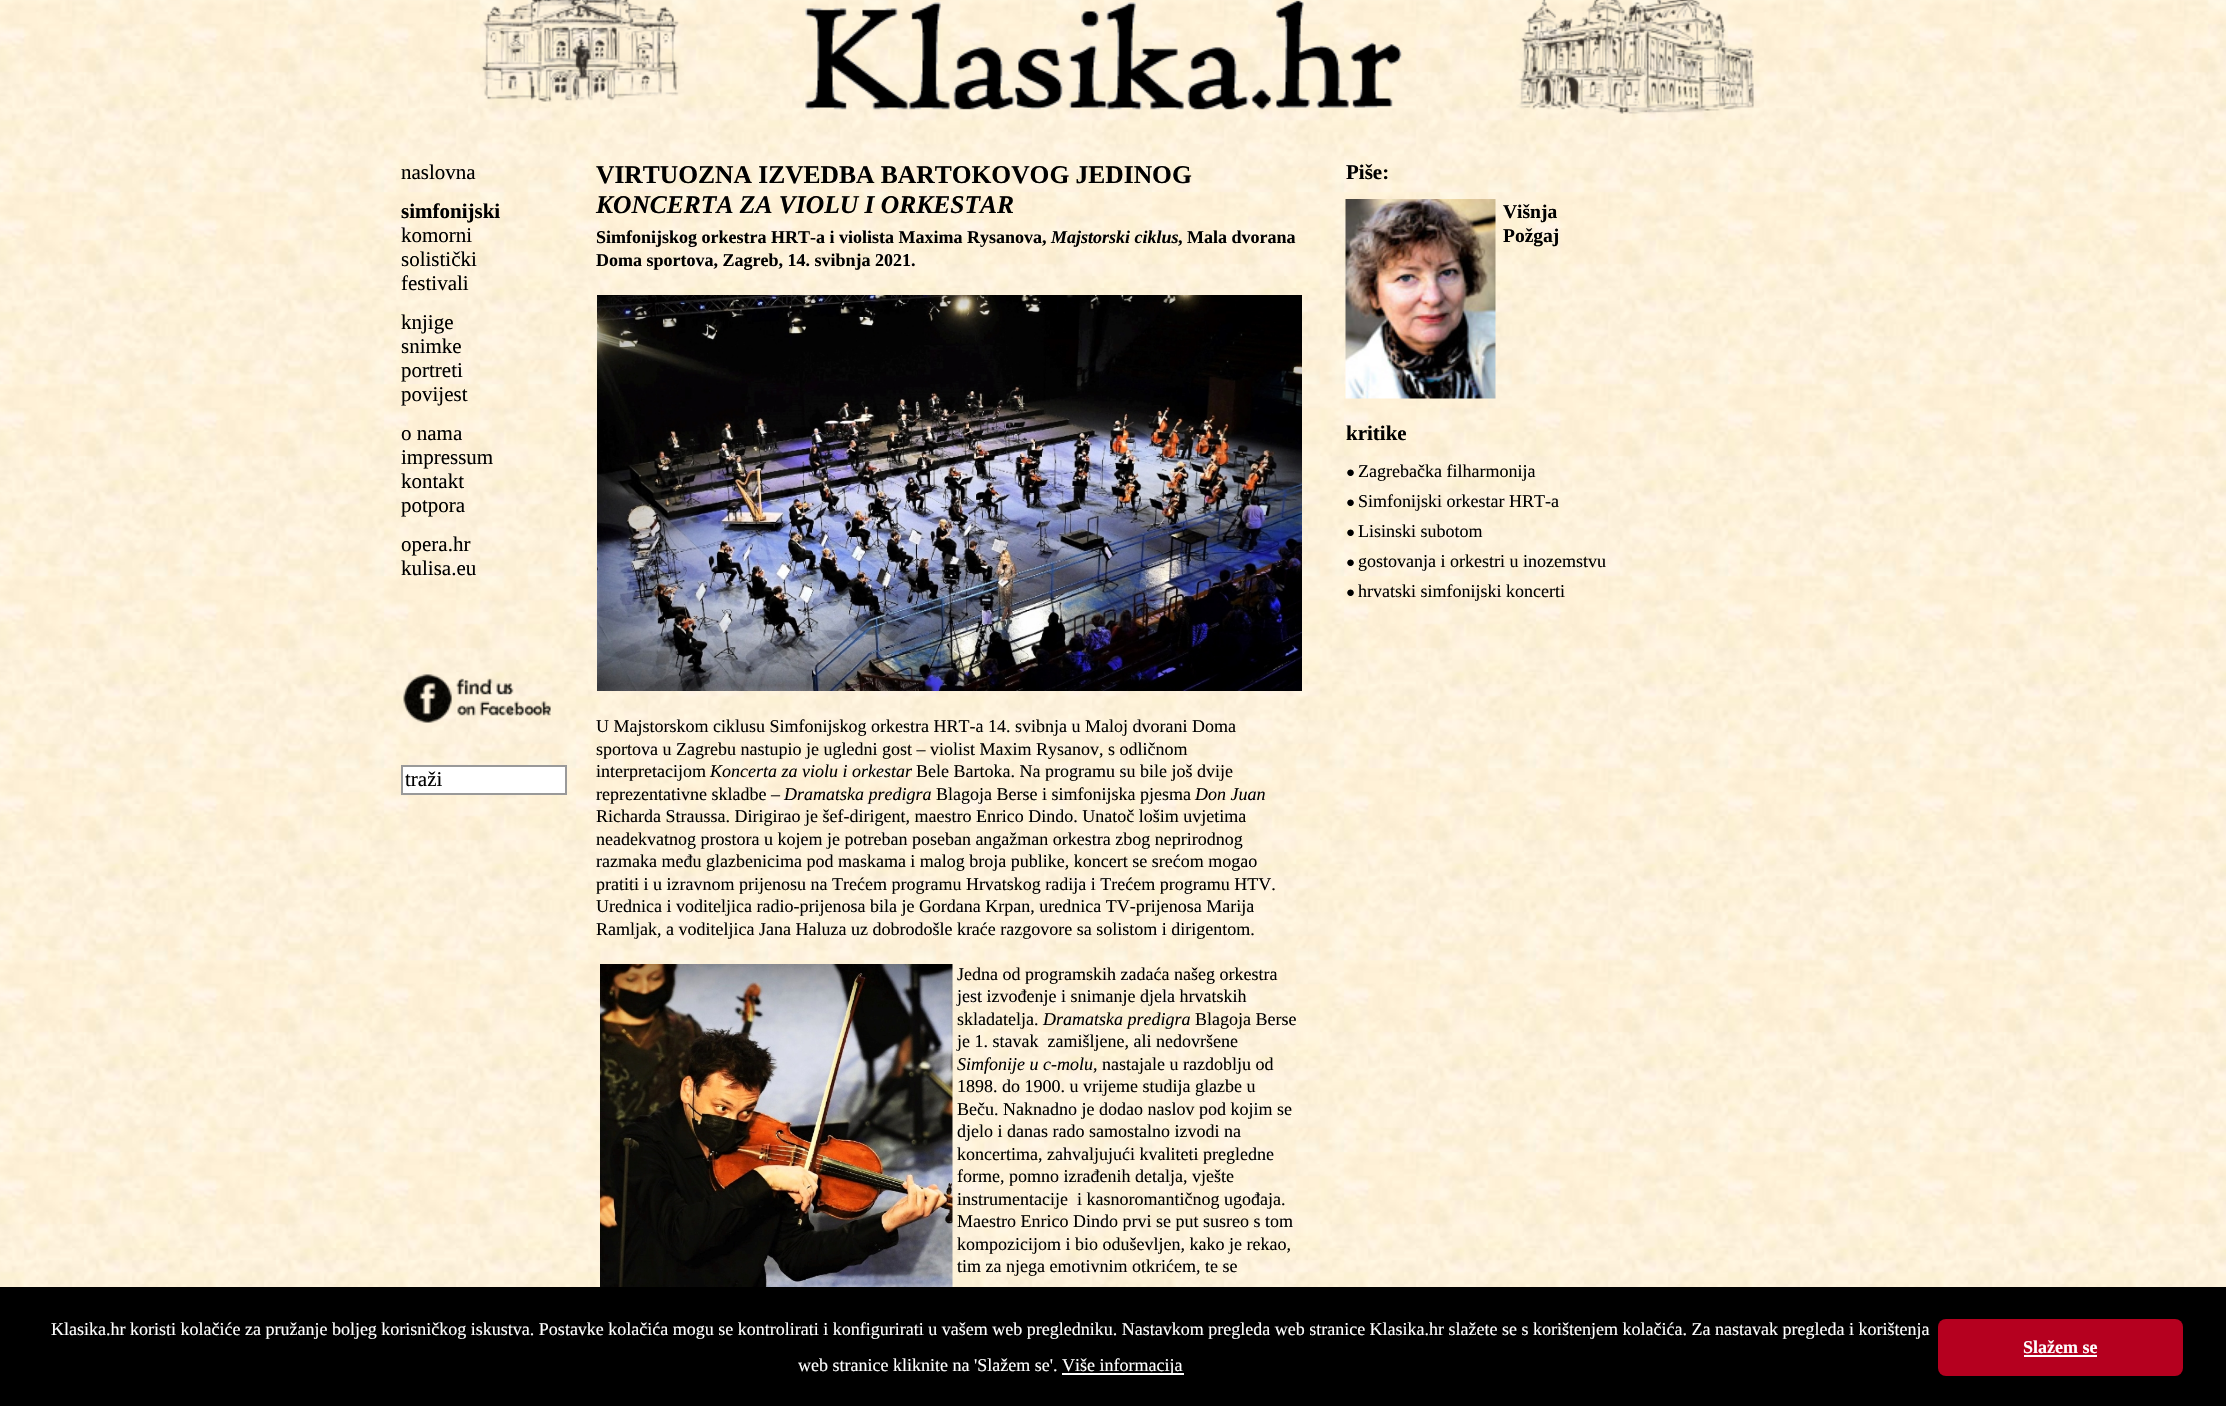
static SkFont makeFont(const char* family, int weight, float size, bool italic = false) {
  SkFontStyle style(weight, SkFontStyle::kNormal_Width,
    italic ? SkFontStyle::kItalic_Slant : SkFontStyle::kUpright_Slant);
  SkFont result(fontMgr->matchFamilyStyle(family, style), size);
  result.setSubpixel(true);
  return result;
}

static void text(SkCanvas* c, const char* s, float x, float y, const SkFont& font, SkColor color) {
  SkPaint ink(SkColor4f::FromColor(color));
  ink.setAntiAlias(true);
  c->drawString(s, x, y, font, ink);
}

static void box(SkCanvas* c, float l, float t, float r, float b, SkColor color) {
  SkPaint ink(SkColor4f::FromColor(color));
  ink.setAntiAlias(true);
  c->drawRect(SkRect::MakeLTRB(l, t, r, b), ink);
}

static void roundBox(SkCanvas* c, float l, float t, float r, float b, float radius, SkColor color) {
  SkPaint ink(SkColor4f::FromColor(color));
  ink.setAntiAlias(true);
  c->drawRoundRect(SkRect::MakeLTRB(l, t, r, b), radius, radius, ink);
}

static void picture(SkCanvas* c, const char* path, float l, float t, float r, float b) {
  auto image = SkImages::DeferredFromEncodedData(SkData::MakeFromFileName(path));
  c->drawImageRect(image, SkRect::MakeLTRB(l, t, r, b), SkSamplingOptions());
}

void draw(SkCanvas* c) {
  SkPaint paint;
  paint.setAntiAlias(true);
  c->clear(0xffffffff);
  picture(c, "img_01.png", 0, 0, 2226, 1287);
  picture(c, "img_02.png", 481, 0, 680, 102);
  picture(c, "img_03.png", 805, 0, 1402, 110);
  picture(c, "img_04.png", 1516, 0, 1754, 114);
  SkFont face1 = makeFont("Liberation Serif", 400, 21);
  text(c, "naslovna", 401, 179, face1, 0xff000000);
  SkFont face2 = makeFont("Liberation Serif", 700, 21);
  text(c, "simfonijski", 401, 218, face2, 0xff000000);
  text(c, "komorni", 401, 242, face1, 0xff000000);
  text(c, "solistički", 401, 266, face1, 0xff000000);
  text(c, "festivali", 401, 290, face1, 0xff000000);
  text(c, "knjige", 401, 329, face1, 0xff000000);
  text(c, "snimke", 401, 353, face1, 0xff000000);
  text(c, "portreti", 401, 377, face1, 0xff000000);
  text(c, "povijest", 401, 401, face1, 0xff000000);
  text(c, "o nama", 401, 440, face1, 0xff000000);
  text(c, "impressum", 401, 464, face1, 0xff000000);
  text(c, "kontakt", 401, 488, face1, 0xff000000);
  text(c, "potpora", 401, 512, face1, 0xff000000);
  text(c, "opera.hr", 401, 551, face1, 0xff000000);
  text(c, "kulisa.eu", 401, 575, face1, 0xff000000);
  picture(c, "img_05.png", 403, 674, 551, 723);
  paint.setColor(0xffffffff);
  c->drawRect(SkRect::MakeLTRB(402, 766, 566, 794), paint);
  paint.setStyle(SkPaint::kStroke_Style);
  paint.setStrokeWidth(2);
  paint.setColor(0xff999999);
  c->drawRect(SkRect::MakeLTRB(402, 766, 566, 794), paint);
  text(c, "traži", 405, 786, face1, 0xff000000);
  SkFont face3 = makeFont("Liberation Serif", 700, 25.5f);
  text(c, "VIRTUOZNA IZVEDBA BARTOKOVOG JEDINOG", 596, 183, face3, 0xff000000);
  SkFont face4 = makeFont("Liberation Serif", 700, 25.5f, true);
  text(c, "KONCERTA ZA VIOLU I ORKESTAR", 596, 213, face4, 0xff000000);
  SkFont face5 = makeFont("Liberation Serif", 700, 18);
  text(c, "Simfonijskog orkestra HRT-a i violista Maxima Rysanova,", 596, 243, face5, 0xff000000);
  SkFont face6 = makeFont("Liberation Serif", 700, 18, true);
  text(c, "Majstorski ciklus", 1051, 243, face6, 0xff000000);
  text(c, ", Mala dvorana", 1178, 243, face5, 0xff000000);
  text(c, "Doma sportova, Zagreb, 14. svibnja 2021.", 596, 266, face5, 0xff000000);
  picture(c, "img_06.png", 597, 295, 1302, 691);
  SkFont face7 = makeFont("Liberation Serif", 400, 18);
  text(c, "U Majstorskom ciklusu Simfonijskog orkestra HRT-a 14. svibnja u Maloj dvorani Doma", 596, 732, face7, 0xff000000);
  text(c, "sportova u Zagrebu nastupio je ugledni gost – violist Maxim Rysanov, s odličnom", 596, 755, face7, 0xff000000);
  text(c, "interpretacijom", 596, 777, face7, 0xff000000);
  SkFont face8 = makeFont("Liberation Serif", 400, 18, true);
  text(c, "Koncerta za violu i orkestar", 710, 777, face8, 0xff000000);
  text(c, "Bele Bartoka. Na programu su bile još dvije", 916, 777, face7, 0xff000000);
  text(c, "reprezentativne skladbe –", 596, 800, face7, 0xff000000);
  text(c, "Dramatska predigra", 784, 800, face8, 0xff000000);
  text(c, "Blagoja Berse i simfonijska pjesma", 936, 800, face7, 0xff000000);
  text(c, "Don Juan", 1195, 800, face8, 0xff000000);
  text(c, "Richarda Straussa. Dirigirao je šef-dirigent, maestro Enrico Dindo. Unatoč lošim uvjetima", 596, 822, face7, 0xff000000);
  text(c, "neadekvatnog prostora u kojem je potreban poseban angažman orkestra zbog neprirodnog", 596, 845, face7, 0xff000000);
  text(c, "razmaka među glazbenicima pod maskama i malog broja publike, koncert se srećom mogao", 596, 867, face7, 0xff000000);
  text(c, "pratiti i u izravnom prijenosu na Trećem programu Hrvatskog radija i Trećem programu HTV.", 596, 890, face7, 0xff000000);
  text(c, "Urednica i voditeljica radio-prijenosa bila je Gordana Krpan, urednica TV-prijenosa Marija", 596, 912, face7, 0xff000000);
  text(c, "Ramljak, a voditeljica Jana Haluza uz dobrodošle kraće razgovore sa solistom i dirigentom.", 596, 935, face7, 0xff000000);
  picture(c, "img_07.png", 600, 964, 953, 1287);
  text(c, "Jedna od programskih zadaća našeg orkestra", 957, 980, face7, 0xff000000);
  text(c, "jest izvođenje i snimanje djela hrvatskih", 957, 1002, face7, 0xff000000);
  text(c, "skladatelja.", 957, 1025, face7, 0xff000000);
  text(c, "Dramatska predigra", 1043, 1025, face8, 0xff000000);
  text(c, "Blagoja Berse", 1195, 1025, face7, 0xff000000);
  text(c, "je 1. stavak  zamišljene, ali nedovršene", 957, 1047, face7, 0xff000000);
  text(c, "Simfonije u c-molu", 957, 1070, face8, 0xff000000);
  text(c, ", nastajale u razdoblju od", 1093, 1070, face7, 0xff000000);
  text(c, "1898. do 1900. u vrijeme studija glazbe u", 957, 1092, face7, 0xff000000);
  text(c, "Beču. Naknadno je dodao naslov pod kojim se", 957, 1115, face7, 0xff000000);
  text(c, "djelo i danas rado samostalno izvodi na", 957, 1137, face7, 0xff000000);
  text(c, "koncertima, zahvaljujući kvaliteti pregledne", 957, 1160, face7, 0xff000000);
  text(c, "forme, pomno izrađenih detalja, vješte", 957, 1182, face7, 0xff000000);
  text(c, "instrumentacije  i kasnoromantičnog ugođaja.", 957, 1205, face7, 0xff000000);
  text(c, "Maestro Enrico Dindo prvi se put susreo s tom", 957, 1227, face7, 0xff000000);
  text(c, "kompozicijom i bio oduševljen, kako je rekao,", 957, 1250, face7, 0xff000000);
  text(c, "tim za njega emotivnim otkrićem, te se", 957, 1272, face7, 0xff000000);
  text(c, "Piše:", 1346, 179, face2, 0xff000000);
  picture(c, "img_08.png", 1345, 199, 1496, 399);
  SkFont face9 = makeFont("Liberation Serif", 700, 19.5f);
  text(c, "Višnja", 1503, 218, face9, 0xff000000);
  text(c, "Požgaj", 1503, 242, face9, 0xff000000);
  text(c, "kritike", 1346, 440, face2, 0xff000000);
  SkFont face10 = makeFont("Liberation Serif", 400, 15);
  text(c, "●", 1346, 477, face10, 0xff000000);
  text(c, "Zagrebačka filharmonija", 1358, 477, face7, 0xff000000);
  text(c, "●", 1346, 507, face10, 0xff000000);
  text(c, "Simfonijski orkestar HRT-a", 1358, 507, face7, 0xff000000);
  text(c, "●", 1346, 537, face10, 0xff000000);
  text(c, "Lisinski subotom", 1358, 537, face7, 0xff000000);
  text(c, "●", 1346, 567, face10, 0xff000000);
  text(c, "gostovanja i orkestri u inozemstvu", 1358, 567, face7, 0xff000000);
  text(c, "●", 1346, 597, face10, 0xff000000);
  text(c, "hrvatski simfonijski koncerti", 1358, 597, face7, 0xff000000);
  box(c, 0, 1287, 2226, 1406, 0xff000000);
  text(c, "Klasika.hr koristi kolačiće za pružanje boljeg korisničkog iskustva. Postavke kolačića mogu se kontrolirati i konfigurirati u vašem web pregledniku. Nastavkom pregleda web stranice Klasika.hr slažete se s korištenjem kolačića. Za nastavak pregleda i korištenja", 51, 1335, face7, 0xffffffff);
  text(c, "web stranice kliknite na 'Slažem se'.", 798, 1371, face7, 0xffffffff);
  box(c, 1062, 1373, 1184, 1375, 0xffffffff);
  text(c, "Više informacija", 1062, 1371, face7, 0xffffffff);
  roundBox(c, 1938, 1319, 2183, 1376, 8, 0xffb5001f);
  text(c, "Slažem se", 2023, 1353, face5, 0xffffffff);
  box(c, 2024, 1355, 2097, 1357, 0xffffffff);
}
